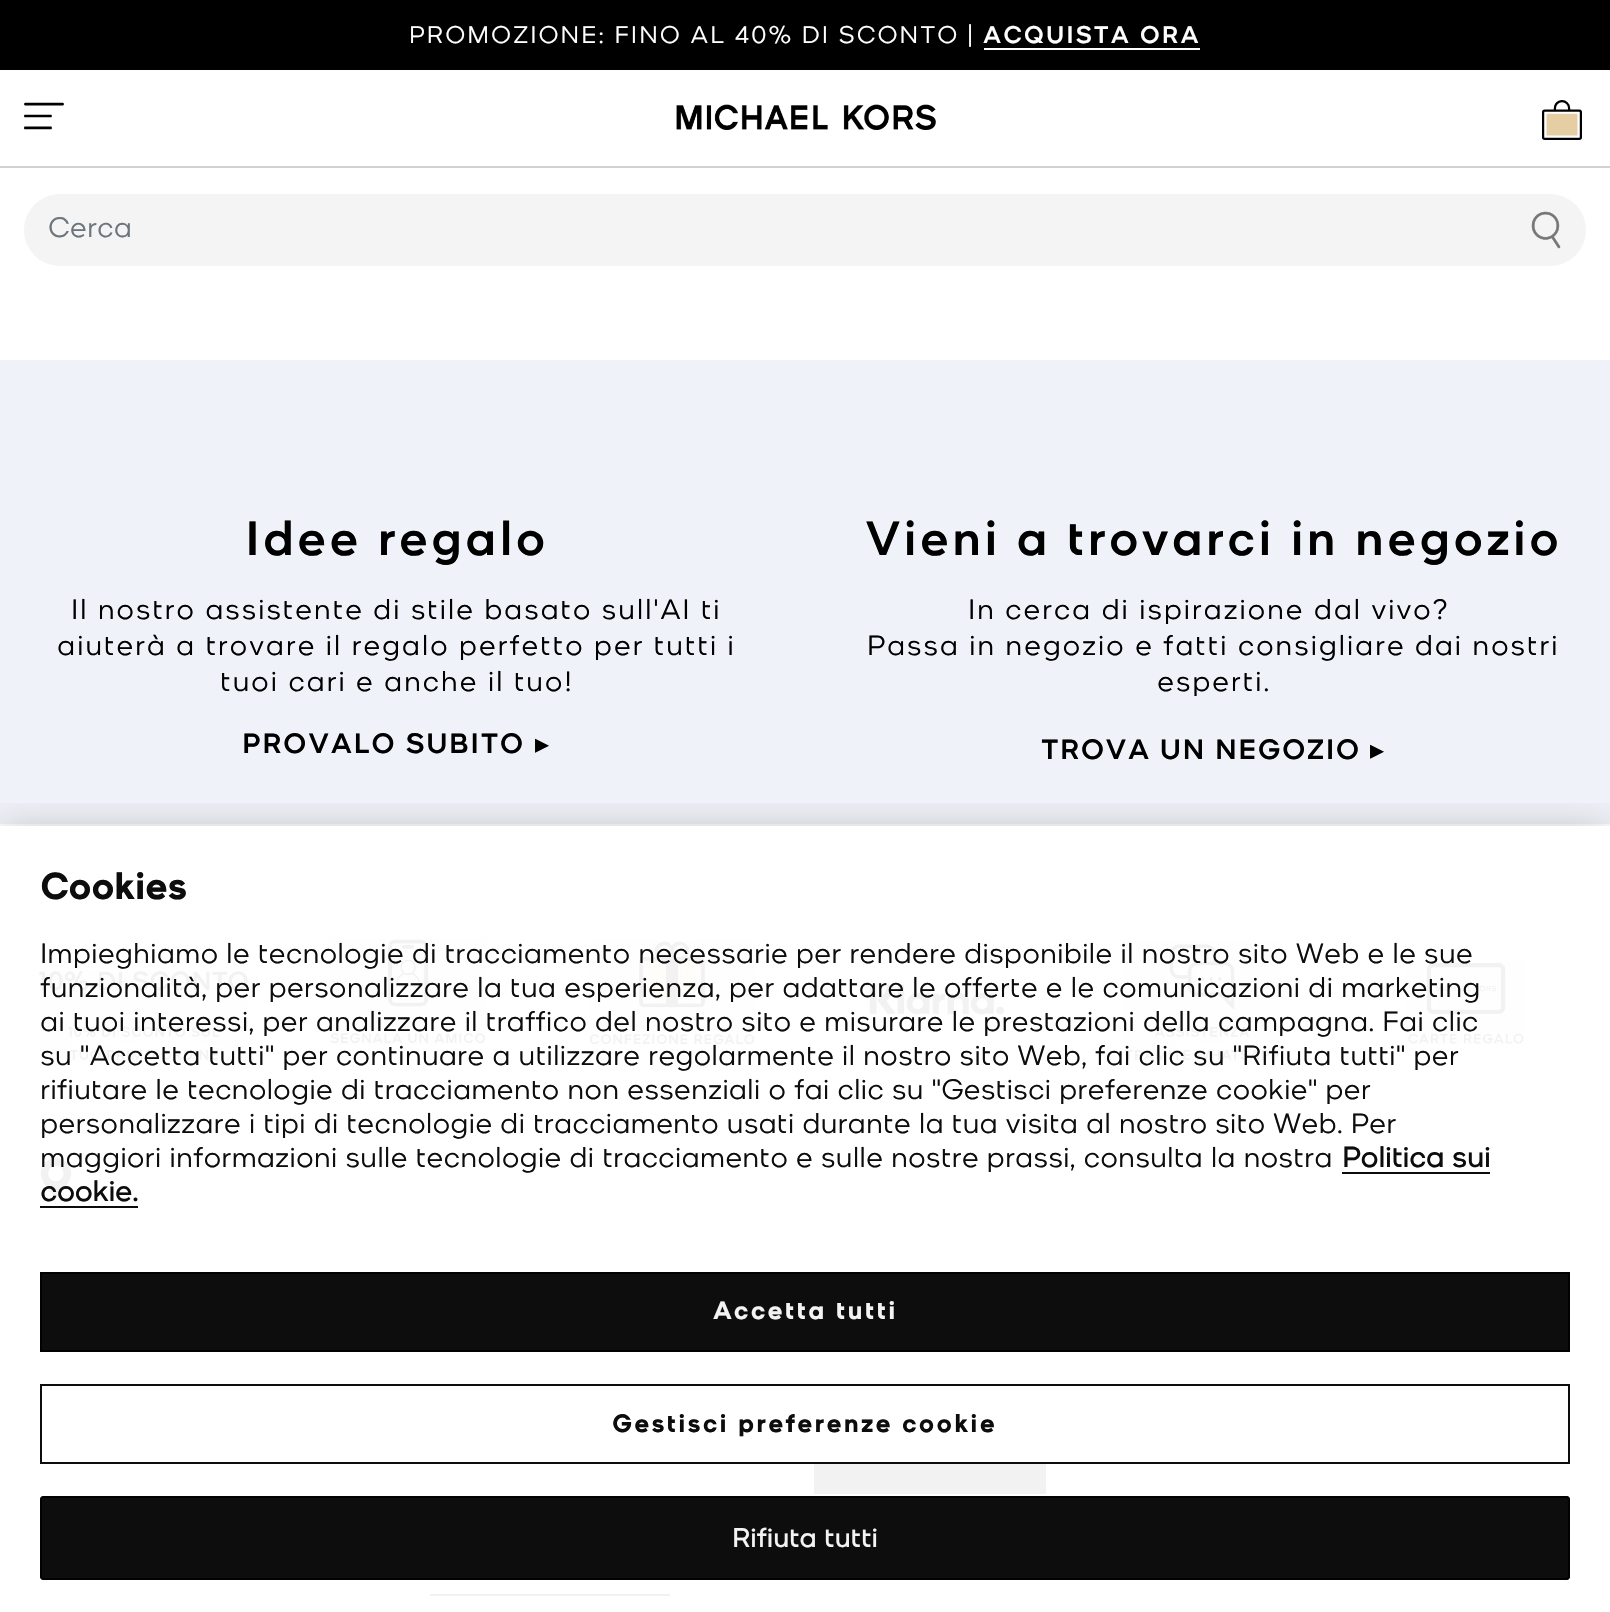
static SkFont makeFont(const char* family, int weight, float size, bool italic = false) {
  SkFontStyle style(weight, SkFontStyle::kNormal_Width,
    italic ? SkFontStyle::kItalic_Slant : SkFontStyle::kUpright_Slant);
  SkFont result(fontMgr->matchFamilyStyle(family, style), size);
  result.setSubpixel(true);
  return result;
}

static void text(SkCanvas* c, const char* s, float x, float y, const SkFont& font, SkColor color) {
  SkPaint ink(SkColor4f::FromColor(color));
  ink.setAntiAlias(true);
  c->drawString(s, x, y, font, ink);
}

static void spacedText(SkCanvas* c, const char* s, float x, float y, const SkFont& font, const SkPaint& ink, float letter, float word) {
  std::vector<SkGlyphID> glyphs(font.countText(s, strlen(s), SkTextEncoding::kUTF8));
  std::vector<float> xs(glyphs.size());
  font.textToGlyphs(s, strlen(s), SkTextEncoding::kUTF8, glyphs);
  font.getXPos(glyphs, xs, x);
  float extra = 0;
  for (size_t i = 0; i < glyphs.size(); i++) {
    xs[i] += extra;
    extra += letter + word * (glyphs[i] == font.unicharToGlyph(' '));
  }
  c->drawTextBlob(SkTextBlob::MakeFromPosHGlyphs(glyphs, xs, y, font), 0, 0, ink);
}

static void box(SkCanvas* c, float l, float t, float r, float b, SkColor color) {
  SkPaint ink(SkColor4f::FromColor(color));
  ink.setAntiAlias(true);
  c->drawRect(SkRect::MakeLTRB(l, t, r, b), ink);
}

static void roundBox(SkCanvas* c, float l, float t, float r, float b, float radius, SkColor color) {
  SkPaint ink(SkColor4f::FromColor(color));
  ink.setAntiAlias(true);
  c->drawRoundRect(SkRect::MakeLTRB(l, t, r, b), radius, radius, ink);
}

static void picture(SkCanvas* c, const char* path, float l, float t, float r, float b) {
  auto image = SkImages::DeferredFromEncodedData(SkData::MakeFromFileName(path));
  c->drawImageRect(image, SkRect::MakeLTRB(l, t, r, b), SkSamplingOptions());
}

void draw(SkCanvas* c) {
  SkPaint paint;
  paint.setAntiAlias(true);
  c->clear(0xffffffff);
  box(c, 0, 166, 1610, 168, 0xffd1d1d1);
  box(c, 0, 0, 1610, 70, 0xff000000);
  SkFont face1 = makeFont("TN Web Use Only", 300, 24);
  paint.setColor(0xffffffff);
  spacedText(c, "PROMOZIONE: FINO AL 40% DI SCONTO |", 409, 43, face1, paint, 2, 0);
  SkFont face2 = makeFont("TN Web Use Only", 500, 24);
  spacedText(c, "ACQUISTA ORA", 983, 43, face2, paint, 2, 0);
  box(c, 984, 48, 1200, 50, 0xffffffff);
  picture(c, "img_01.png", 24, 102, 64, 130);
  picture(c, "img_02.png", 676, 104, 936, 130);
  picture(c, "img_03.png", 1542, 100, 1582, 140);
  roundBox(c, 24, 194, 1586, 266, 36, 0xfff4f4f4);
  SkFont face3 = makeFont("TN Web Use Only", 300, 28);
  text(c, "Cerca", 48, 237, face3, 0xff6c757d);
  picture(c, "img_04.png", 1531, 211, 1561, 249);
  box(c, 0, 360, 1610, 824, 0xffeff2f8);
  SkFont face4 = makeFont("TN Web Use Only", 500, 48);
  paint.setColor(0xff000000);
  spacedText(c, "Idee regalo", 245, 555, face4, paint, 2.4f, 0);
  spacedText(c, "Il nostro assistente di stile basato sull'AI ti", 71, 619, face3, paint, 1.6f, 0);
  spacedText(c, "aiuterà a trovare il regalo perfetto per tutti i", 57, 655, face3, paint, 1.6f, 0);
  spacedText(c, "tuoi cari e anche il tuo!", 220, 691, face3, paint, 1.6f, 0);
  SkFont face5 = makeFont("TN Web Use Only", 500, 28);
  spacedText(c, "PROVALO SUBITO", 242, 753, face5, paint, 1.6f, 0);
  SkFont face6 = makeFont("DejaVu Sans", 400, 28);
  spacedText(c, "▸", 535, 753, face6, paint, 1.6f, 0);
  spacedText(c, "Vieni a trovarci in negozio", 865, 555, face4, paint, 2.4f, 0);
  spacedText(c, "In cerca di ispirazione dal vivo?", 968, 619, face3, paint, 1.6f, 0);
  spacedText(c, "Passa in negozio e fatti consigliare dai nostri", 867, 655, face3, paint, 1.6f, 0);
  spacedText(c, "esperti.", 1157, 691, face3, paint, 1.6f, 0);
  spacedText(c, "TROVA UN NEGOZIO", 1041, 759, face5, paint, 1.4f, 0);
  spacedText(c, "▸", 1370, 759, face6, paint, 1.4f, 0);
  picture(c, "img_05.png", 39, 970, 248, 1062);
  picture(c, "img_06.png", 330, 938, 486, 1045);
  picture(c, "img_07.png", 589, 940, 755, 1045);
  picture(c, "img_08.png", 869, 984, 1005, 1016);
  picture(c, "img_09.png", 1124, 942, 1280, 1062);
  picture(c, "img_10.png", 1406, 961, 1524, 1045);
  picture(c, "img_11.png", 40, 1158, 72, 1198);
  box(c, 814, 1464, 1046, 1494, 0xfff2f2f2);
  box(c, 430, 1594, 670, 1596, 0xfff2f2f2);
  c->save();
  c->clipRect(SkRect::MakeLTRB(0, 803, 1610, 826));
  paint.setColor(0x30000000);
  paint.setMaskFilter(SkMaskFilter::MakeBlur(kNormal_SkBlurStyle, 18));
  c->drawRect(SkRect::MakeLTRB(0, 826, 1610, 1612), paint);
  paint.setMaskFilter(nullptr);
  c->restore();
  SkFont face7 = makeFont("TN Web Use Only", 700, 36);
  text(c, "Cookies", 40, 899, face7, 0xff0d0d0d);
  text(c, "Impieghiamo le tecnologie di tracciamento necessarie per rendere disponibile il nostro sito Web e le sue", 40, 963, face3, 0xff0d0d0d);
  text(c, "funzionalità, per personalizzare la tua esperienza, per adattare le offerte e le comunicazioni di marketing", 40, 997, face3, 0xff0d0d0d);
  text(c, "ai tuoi interessi, per analizzare il traffico del nostro sito e misurare le prestazioni della campagna. Fai clic", 40, 1031, face3, 0xff0d0d0d);
  text(c, "su \"Accetta tutti\" per continuare a utilizzare regolarmente il nostro sito Web, fai clic su \"Rifiuta tutti\" per", 40, 1065, face3, 0xff0d0d0d);
  text(c, "rifiutare le tecnologie di tracciamento non essenziali o fai clic su \"Gestisci preferenze cookie\" per", 40, 1099, face3, 0xff0d0d0d);
  text(c, "personalizzare i tipi di tecnologie di tracciamento usati durante la tua visita al nostro sito Web. Per", 40, 1133, face3, 0xff0d0d0d);
  text(c, "maggiori informazioni sulle tecnologie di tracciamento e sulle nostre prassi, consulta la nostra", 40, 1167, face3, 0xff0d0d0d);
  SkFont face8 = makeFont("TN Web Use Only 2", 700, 28);
  text(c, "Politica sui", 1342, 1167, face8, 0xff0d0d0d);
  box(c, 1342, 1172, 1490, 1174, 0xff0c0c0c);
  text(c, "cookie.", 40, 1201, face8, 0xff0d0d0d);
  box(c, 40, 1206, 138, 1208, 0xff0c0c0c);
  paint.setColor(0xf2000000);
  c->drawRect(SkRect::MakeLTRB(41, 1273, 1569, 1351), paint);
  paint.setStyle(SkPaint::kStroke_Style);
  paint.setStrokeWidth(2);
  paint.setColor(0xff010101);
  c->drawRect(SkRect::MakeLTRB(41, 1273, 1569, 1351), paint);
  SkFont face9 = makeFont("TN Web Use Only", 700, 24);
  paint.setStyle(SkPaint::kFill_Style);
  paint.setColor(0xfff3f3f3);
  spacedText(c, "Accetta tutti", 713, 1319, face9, paint, 2.4f, 0);
  paint.setStyle(SkPaint::kStroke_Style);
  paint.setColor(0xff0d0d0d);
  c->drawRect(SkRect::MakeLTRB(41, 1385, 1569, 1463), paint);
  paint.setStyle(SkPaint::kFill_Style);
  spacedText(c, "Gestisci preferenze cookie", 612, 1432, face9, paint, 2.4f, 0);
  roundBox(c, 40, 1496, 1570, 1580, 4, 0xf2000000);
  paint.setStyle(SkPaint::kStroke_Style);
  paint.setColor(0xf2000000);
  c->drawRoundRect(SkRect::MakeLTRB(41, 1497, 1569, 1579), 3, 3, paint);
  SkFont face10 = makeFont("TN Web Use Only 2", 700, 26);
  paint.setStyle(SkPaint::kFill_Style);
  paint.setColor(0xfff3f3f3);
  spacedText(c, "Rifiuta tutti", 732, 1547, face10, paint, 0.25f, 0);
}
